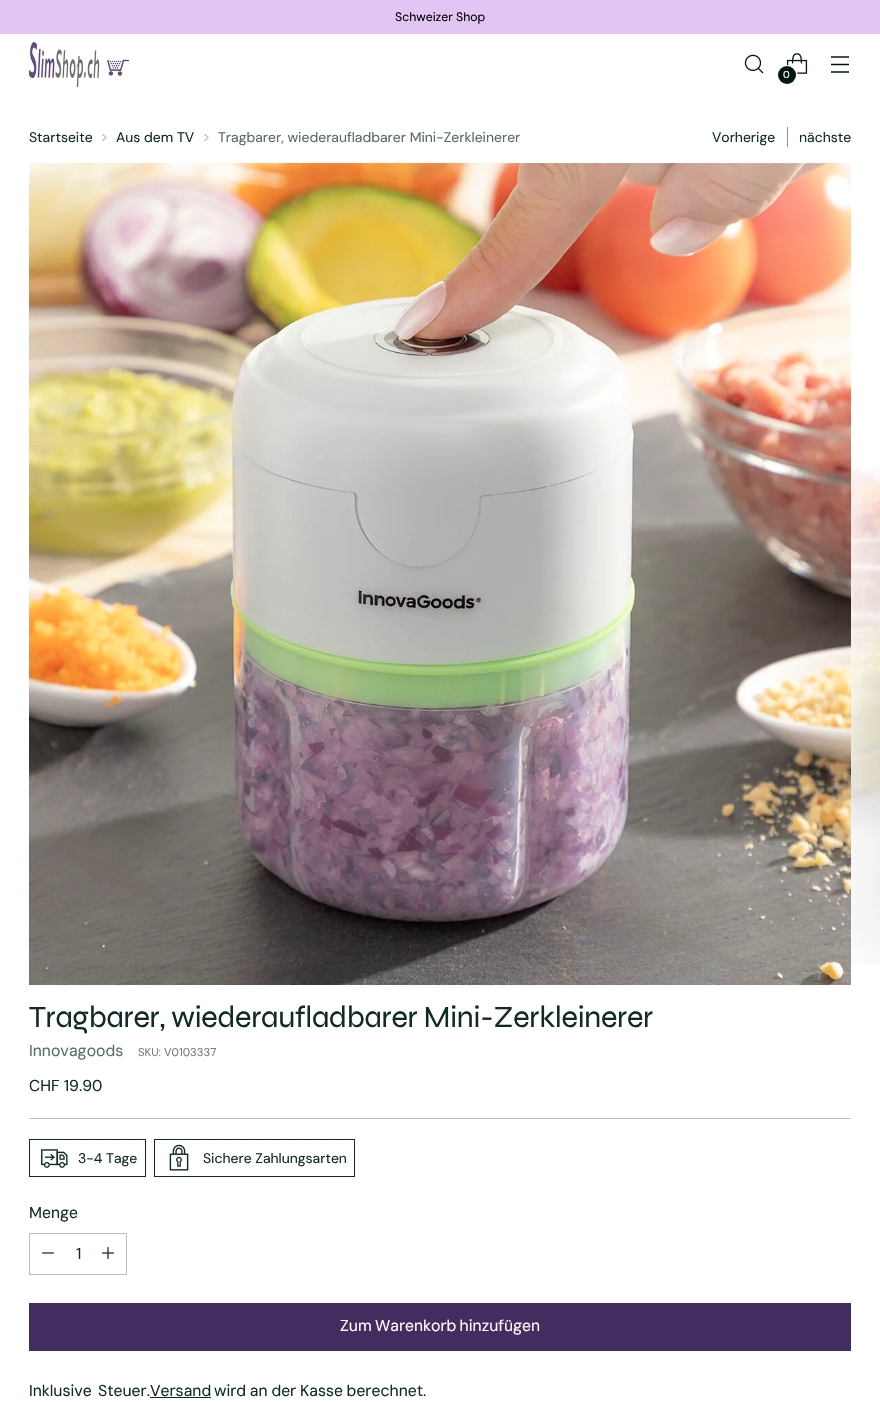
static SkFont makeFont(const char* family, int weight, float size, bool italic = false) {
  SkFontStyle style(weight, SkFontStyle::kNormal_Width,
    italic ? SkFontStyle::kItalic_Slant : SkFontStyle::kUpright_Slant);
  SkFont result(fontMgr->matchFamilyStyle(family, style), size);
  result.setSubpixel(true);
  return result;
}

static void text(SkCanvas* c, const char* s, float x, float y, const SkFont& font, SkColor color) {
  SkPaint ink(SkColor4f::FromColor(color));
  ink.setAntiAlias(true);
  c->drawString(s, x, y, font, ink);
}

static void spacedText(SkCanvas* c, const char* s, float x, float y, const SkFont& font, const SkPaint& ink, float letter, float word) {
  std::vector<SkGlyphID> glyphs(font.countText(s, strlen(s), SkTextEncoding::kUTF8));
  std::vector<float> xs(glyphs.size());
  font.textToGlyphs(s, strlen(s), SkTextEncoding::kUTF8, glyphs);
  font.getXPos(glyphs, xs, x);
  float extra = 0;
  for (size_t i = 0; i < glyphs.size(); i++) {
    xs[i] += extra;
    extra += letter + word * (glyphs[i] == font.unicharToGlyph(' '));
  }
  c->drawTextBlob(SkTextBlob::MakeFromPosHGlyphs(glyphs, xs, y, font), 0, 0, ink);
}

static void box(SkCanvas* c, float l, float t, float r, float b, SkColor color) {
  SkPaint ink(SkColor4f::FromColor(color));
  ink.setAntiAlias(true);
  c->drawRect(SkRect::MakeLTRB(l, t, r, b), ink);
}

static void picture(SkCanvas* c, const char* path, float l, float t, float r, float b) {
  auto image = SkImages::DeferredFromEncodedData(SkData::MakeFromFileName(path));
  c->drawImageRect(image, SkRect::MakeLTRB(l, t, r, b), SkSamplingOptions());
}

void draw(SkCanvas* c) {
  SkPaint paint;
  paint.setAntiAlias(true);
  c->clear(0xffffffff);
  box(c, 0, 0, 880, 34, 0xffe3c5f3);
  SkFont face1 = makeFont("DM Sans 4", 400, 12.25f);
  text(c, "Schweizer Shop", 395, 21, face1, 0xff000000);
  picture(c, "img_01.png", 29, 42, 129, 87);
  picture(c, "img_02.png", 744, 54, 764, 74);
  paint.setStyle(SkPaint::kStroke_Style);
  paint.setStrokeWidth(1.3f);
  paint.setColor(0xff031612);
  c->drawPath(SkPathBuilder().moveTo(831, 64.5f).lineTo(849, 64.5f).moveTo(831, 57).lineTo(849, 57).moveTo(831, 72).lineTo(849, 72).detach(), paint);
  picture(c, "img_03.png", 786, 53, 808, 74);
  paint.setStrokeWidth(2);
  paint.setColor(0xffffffff);
  c->drawCircle(787.5f, 75.5f, 9.5f, paint);
  paint.setStyle(SkPaint::kFill_Style);
  paint.setColor(0xff031612);
  c->drawCircle(787, 75, 9, paint);
  SkFont face2 = makeFont("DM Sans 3", 400, 10);
  text(c, "0", 783, 78, face2, 0xffffffff);
  SkFont face3 = makeFont("DM Sans", 400, 14);
  text(c, "Startseite", 29, 142, face3, 0xff102b26);
  paint.setStyle(SkPaint::kStroke_Style);
  paint.setStrokeWidth(0.9f);
  paint.setColor(0xff70807d);
  c->drawPath(SkPathBuilder().moveTo(102.5f, 141).lineTo(106, 137.5f).lineTo(102.5f, 134).detach(), paint);
  text(c, "Aus dem TV", 116, 142, face3, 0xff102b26);
  c->drawPath(SkPathBuilder().moveTo(204.5f, 141).lineTo(208, 137.5f).lineTo(204.5f, 134).detach(), paint);
  text(c, "Tragbarer, wiederaufladbarer Mini-Zerkleinerer", 218, 142, face3, 0xff586b67);
  text(c, "Vorherige", 712, 142, face3, 0xff102b26);
  box(c, 787, 127, 788, 147, 0xff889593);
  text(c, "nächste", 799, 142, face3, 0xff102b26);
  picture(c, "img_04.png", 29, 163, 851, 985);
  picture(c, "img_05.png", 851, 466, 880, 964);
  box(c, 29, 1118, 851, 1119, 0xffbdbfbf);
  SkFont face4 = makeFont("Syne", 400, 30.7f);
  paint.setStyle(SkPaint::kFill_Style);
  paint.setColor(0xff102b26);
  spacedText(c, "Tragbarer, wiederaufladbarer Mini-Zerkleinerer", 29, 1027, face4, paint, -0.3f, 0);
  SkFont face5 = makeFont("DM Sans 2", 400, 15.75f);
  text(c, "Innovagoods", 29, 1056, face5, 0xff586b67);
  SkFont face6 = makeFont("DM Sans 2", 400, 11.25f);
  text(c, "SKU: V0103337", 138, 1056, face6, 0xff70807d);
  text(c, "CHF 19.90", 29, 1091, face5, 0xff102b26);
  paint.setStyle(SkPaint::kStroke_Style);
  paint.setStrokeWidth(1);
  c->drawRect(SkRect::MakeLTRB(29.5f, 1139.5f, 145.5f, 1176.5f), paint);
  picture(c, "img_06.png", 41, 1149, 68, 1168);
  text(c, "3-4 Tage", 78, 1163, face3, 0xff102b26);
  c->drawRect(SkRect::MakeLTRB(154.5f, 1139.5f, 354.5f, 1176.5f), paint);
  picture(c, "img_07.png", 169, 1144, 189, 1171);
  text(c, "Sichere Zahlungsarten", 203, 1163, face3, 0xff102b26);
  text(c, "Menge", 29, 1218, face5, 0xff102b26);
  paint.setColor(0xffbdbfbf);
  c->drawRect(SkRect::MakeLTRB(29.5f, 1233.5f, 126.5f, 1274.5f), paint);
  picture(c, "img_08.png", 42, 1252, 54, 1254);
  text(c, "1", 76, 1259, face5, 0xff102b26);
  picture(c, "img_09.png", 102, 1247, 114, 1259);
  c->save();
  c->clipRect(SkRect::MakeLTRB(29, 1303, 851, 1351));
  paint.setStyle(SkPaint::kFill_Style);
  paint.setColor(0xff432c5f);
  c->drawPath(SkPathBuilder().moveTo(-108, 1303).lineTo(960, 1303).lineTo(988, 1351).lineTo(-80, 1351).close().detach(), paint);
  c->restore();
  paint.setColor(0xffffffff);
  spacedText(c, "Zum Warenkorb hinzufügen", 340, 1331, face5, paint, 0, -1);
  paint.setColor(0xff102b26);
  spacedText(c, "Inklusive Steuer.", 29, 1396, face5, paint, 0, 2);
  text(c, "Versand", 150, 1396, face5, 0xff102b26);
  box(c, 150, 1397, 211, 1398, 0xff102b26);
  spacedText(c, "wird an der Kasse berechnet.", 214, 1396, face5, paint, 0, -0.5f);
}
